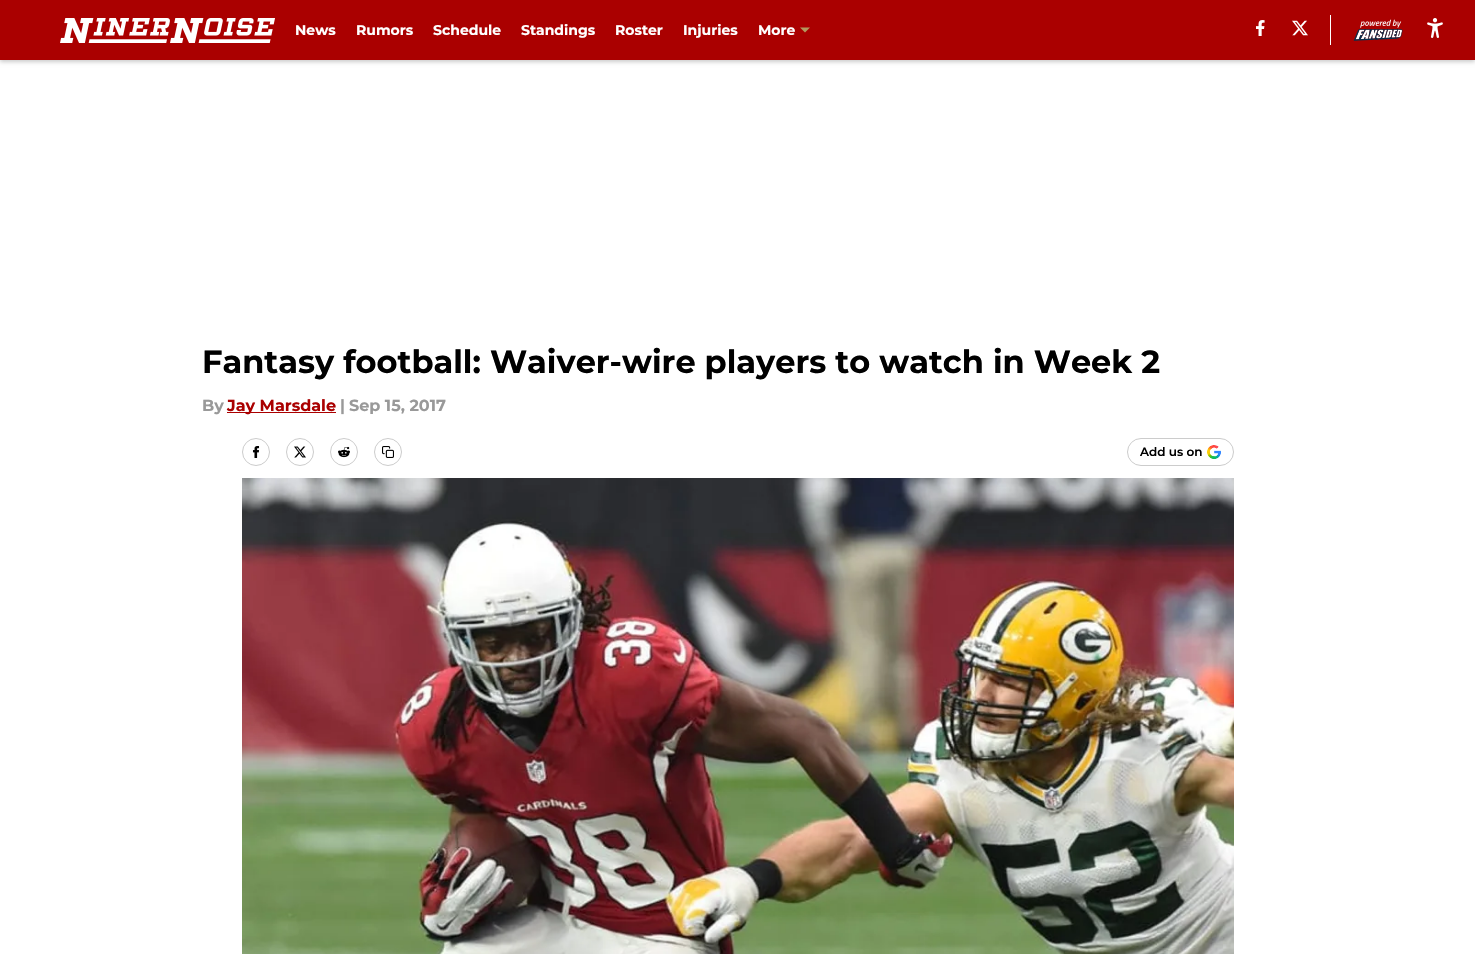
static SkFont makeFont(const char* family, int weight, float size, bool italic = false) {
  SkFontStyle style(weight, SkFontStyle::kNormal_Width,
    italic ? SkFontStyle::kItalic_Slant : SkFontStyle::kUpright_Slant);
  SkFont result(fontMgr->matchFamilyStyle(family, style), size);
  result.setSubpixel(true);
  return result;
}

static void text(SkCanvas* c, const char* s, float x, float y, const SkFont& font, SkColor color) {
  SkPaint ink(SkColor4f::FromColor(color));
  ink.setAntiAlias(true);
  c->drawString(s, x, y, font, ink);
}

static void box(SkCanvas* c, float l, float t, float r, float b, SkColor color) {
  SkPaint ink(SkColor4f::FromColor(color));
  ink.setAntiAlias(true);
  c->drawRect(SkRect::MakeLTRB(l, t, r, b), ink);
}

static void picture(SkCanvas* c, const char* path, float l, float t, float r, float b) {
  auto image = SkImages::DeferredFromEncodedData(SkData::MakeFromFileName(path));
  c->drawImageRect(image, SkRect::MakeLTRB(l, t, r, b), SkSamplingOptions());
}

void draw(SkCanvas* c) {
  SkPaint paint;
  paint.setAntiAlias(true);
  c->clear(0xffffffff);
  paint.setColor(0x33000000);
  paint.setMaskFilter(SkMaskFilter::MakeBlur(kNormal_SkBlurStyle, 2));
  c->drawRect(SkRect::MakeLTRB(0, 2, 1475, 62), paint);
  paint.setMaskFilter(nullptr);
  box(c, 0, 0, 1475, 60, 0xffaa0000);
  picture(c, "img_01.png", 60, 18, 275, 43);
  SkFont face1 = makeFont("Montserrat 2", 100, 14);
  text(c, "News", 295, 35, face1, 0xffffffff);
  text(c, "Rumors", 356, 35, face1, 0xffffffff);
  text(c, "Schedule", 433, 35, face1, 0xffffffff);
  text(c, "Standings", 521, 35, face1, 0xffffffff);
  text(c, "Roster", 615, 35, face1, 0xffffffff);
  text(c, "Injuries", 683, 35, face1, 0xffffffff);
  text(c, "More", 758, 35, face1, 0xffffffff);
  paint.setColor(0xffb3995d);
  c->drawPath(SkPathBuilder(SkPathFillType::kEvenOdd).moveTo(800, 27.5f).lineTo(805, 32.5f).lineTo(810, 27.5f).close().detach(), paint);
  picture(c, "img_02.png", 1256, 20, 1265, 36);
  picture(c, "img_03.png", 1292, 20, 1308, 36);
  box(c, 1330, 15, 1331, 45, 0xffffffff);
  picture(c, "img_04.png", 1353, 19, 1403, 41);
  picture(c, "img_05.png", 1427, 18, 1443, 38);
  SkFont face2 = makeFont("Montserrat 2", 100, 32);
  text(c, "Fantasy football: Waiver-wire players to watch in Week 2", 202, 373, face2, 0xff000000);
  SkFont face3 = makeFont("Montserrat 2", 100, 16);
  text(c, "By", 202, 411, face3, 0xff999999);
  box(c, 227, 412, 336, 413, 0xffaa0000);
  text(c, "Jay Marsdale", 227, 411, face3, 0xffaa0000);
  text(c, "|", 340, 411, face3, 0xff999999);
  text(c, "Sep 15, 2017", 349, 411, face3, 0xff999999);
  paint.setStyle(SkPaint::kStroke_Style);
  paint.setStrokeWidth(1);
  paint.setColor(0xffcccccc);
  c->drawCircle(256, 452, 13.5f, paint);
  picture(c, "img_06.png", 252, 446, 260, 458);
  c->drawCircle(300, 452, 13.5f, paint);
  picture(c, "img_07.png", 294, 446, 306, 458);
  c->drawCircle(344, 452, 13.5f, paint);
  picture(c, "img_08.png", 338, 446, 350, 458);
  c->drawCircle(388, 452, 13.5f, paint);
  picture(c, "img_09.png", 382, 446, 394, 458);
  c->drawRoundRect(SkRect::MakeLTRB(1127.5f, 438.5f, 1233.5f, 465.5f), 13.5f, 13.5f, paint);
  SkFont face4 = makeFont("Montserrat", 100, 12);
  text(c, "Add us on", 1140, 456, face4, 0xff000000);
  picture(c, "img_10.png", 1207, 445, 1221, 459);
  picture(c, "img_11.png", 242, 478, 1234, 954);
}
